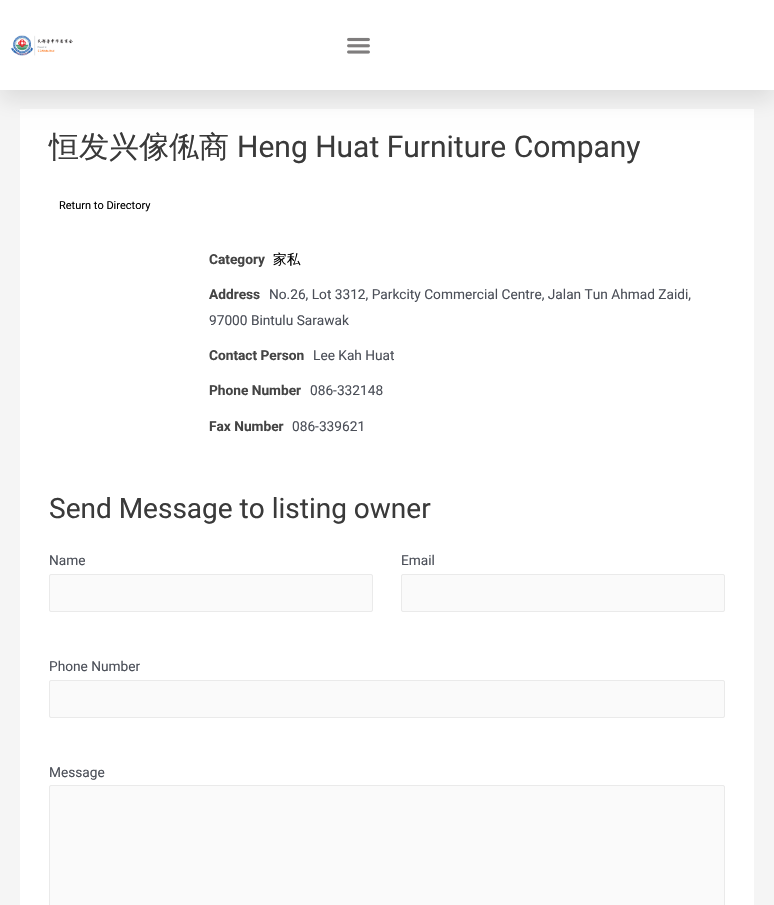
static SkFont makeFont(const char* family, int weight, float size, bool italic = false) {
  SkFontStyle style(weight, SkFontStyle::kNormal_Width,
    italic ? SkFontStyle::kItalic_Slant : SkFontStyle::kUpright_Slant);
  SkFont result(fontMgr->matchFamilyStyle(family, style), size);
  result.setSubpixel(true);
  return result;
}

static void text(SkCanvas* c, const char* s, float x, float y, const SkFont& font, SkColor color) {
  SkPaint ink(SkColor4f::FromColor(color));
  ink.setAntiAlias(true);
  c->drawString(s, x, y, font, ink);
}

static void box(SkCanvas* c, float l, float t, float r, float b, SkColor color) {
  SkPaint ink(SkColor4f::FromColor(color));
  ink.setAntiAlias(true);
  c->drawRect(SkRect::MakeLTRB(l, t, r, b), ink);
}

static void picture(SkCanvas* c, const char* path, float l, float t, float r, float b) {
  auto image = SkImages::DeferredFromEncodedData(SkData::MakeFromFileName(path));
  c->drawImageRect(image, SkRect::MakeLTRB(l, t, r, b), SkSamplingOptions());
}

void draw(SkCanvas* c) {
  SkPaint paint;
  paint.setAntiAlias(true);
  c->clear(0xfff5f5f5);
  box(c, 20, 109, 754, 905, 0xffffffff);
  paint.setColor(0x1a000000);
  paint.setMaskFilter(SkMaskFilter::MakeBlur(kNormal_SkBlurStyle, 10));
  c->drawRect(SkRect::MakeLTRB(0, 10, 774, 100), paint);
  paint.setMaskFilter(nullptr);
  box(c, 0, 0, 774, 90, 0xffffffff);
  picture(c, "img_01.png", 10, 35, 73, 56);
  picture(c, "img_02.png", 347, 37, 370, 54);
  SkFont face1 = makeFont("WenQuanYi Zen Hei", 500, 30);
  text(c, "恒发兴傢俬商", 49, 157, face1, 0xff3a3a3a);
  SkFont face2 = makeFont("Roboto", 400, 30);
  text(c, "Heng Huat Furniture Company", 237, 157, face2, 0xff3a3a3a);
  SkFont face3 = makeFont("Roboto", 400, 11);
  text(c, "Return to Directory", 59, 209, face3, 0xff000000);
  SkFont face4 = makeFont("Roboto", 700, 13.7f);
  text(c, "Category", 209, 264, face4, 0xff444444);
  SkFont face5 = makeFont("WenQuanYi Zen Hei", 500, 13.7f);
  text(c, "家私", 273, 264, face5, 0xff000000);
  text(c, "Address", 209, 299, face4, 0xff444444);
  SkFont face6 = makeFont("Roboto", 400, 13.7f);
  text(c, "No.26, Lot 3312, Parkcity Commercial Centre, Jalan Tun Ahmad Zaidi,", 269, 299, face6, 0xff4b4f58);
  text(c, "97000 Bintulu Sarawak", 209, 325, face6, 0xff4b4f58);
  text(c, "Contact Person", 209, 360, face4, 0xff444444);
  text(c, "Lee Kah Huat", 313, 360, face6, 0xff4b4f58);
  text(c, "Phone Number", 209, 395, face4, 0xff444444);
  text(c, "086-332148", 310, 395, face6, 0xff4b4f58);
  text(c, "Fax Number", 209, 431, face4, 0xff444444);
  text(c, "086-339621", 292, 431, face6, 0xff4b4f58);
  SkFont face7 = makeFont("Roboto", 400, 28);
  text(c, "Send Message to listing owner", 49, 518, face7, 0xff3a3a3a);
  text(c, "Name", 49, 565, face6, 0xff4b4f58);
  paint.setColor(0xfffafafa);
  c->drawRoundRect(SkRect::MakeLTRB(49.5f, 574.5f, 372.5f, 611.5f), 1.5f, 1.5f, paint);
  paint.setStyle(SkPaint::kStroke_Style);
  paint.setStrokeWidth(1);
  paint.setColor(0xffeaeaea);
  c->drawRoundRect(SkRect::MakeLTRB(49.5f, 574.5f, 372.5f, 611.5f), 1.5f, 1.5f, paint);
  text(c, "Email", 401, 565, face6, 0xff4b4f58);
  paint.setStyle(SkPaint::kFill_Style);
  paint.setColor(0xfffafafa);
  c->drawRoundRect(SkRect::MakeLTRB(401.5f, 574.5f, 724.5f, 611.5f), 1.5f, 1.5f, paint);
  paint.setStyle(SkPaint::kStroke_Style);
  paint.setColor(0xffeaeaea);
  c->drawRoundRect(SkRect::MakeLTRB(401.5f, 574.5f, 724.5f, 611.5f), 1.5f, 1.5f, paint);
  text(c, "Phone Number", 49, 671, face6, 0xff4b4f58);
  paint.setStyle(SkPaint::kFill_Style);
  paint.setColor(0xfffafafa);
  c->drawRoundRect(SkRect::MakeLTRB(49.5f, 680.5f, 724.5f, 717.5f), 1.5f, 1.5f, paint);
  paint.setStyle(SkPaint::kStroke_Style);
  paint.setColor(0xffeaeaea);
  c->drawRoundRect(SkRect::MakeLTRB(49.5f, 680.5f, 724.5f, 717.5f), 1.5f, 1.5f, paint);
  text(c, "Message", 49, 777, face6, 0xff4b4f58);
  paint.setStyle(SkPaint::kFill_Style);
  paint.setColor(0xfffafafa);
  c->drawRoundRect(SkRect::MakeLTRB(49.5f, 785.5f, 724.5f, 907.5f), 1.5f, 1.5f, paint);
  paint.setStyle(SkPaint::kStroke_Style);
  paint.setColor(0xffeaeaea);
  c->drawRoundRect(SkRect::MakeLTRB(49.5f, 785.5f, 724.5f, 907.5f), 1.5f, 1.5f, paint);
}
